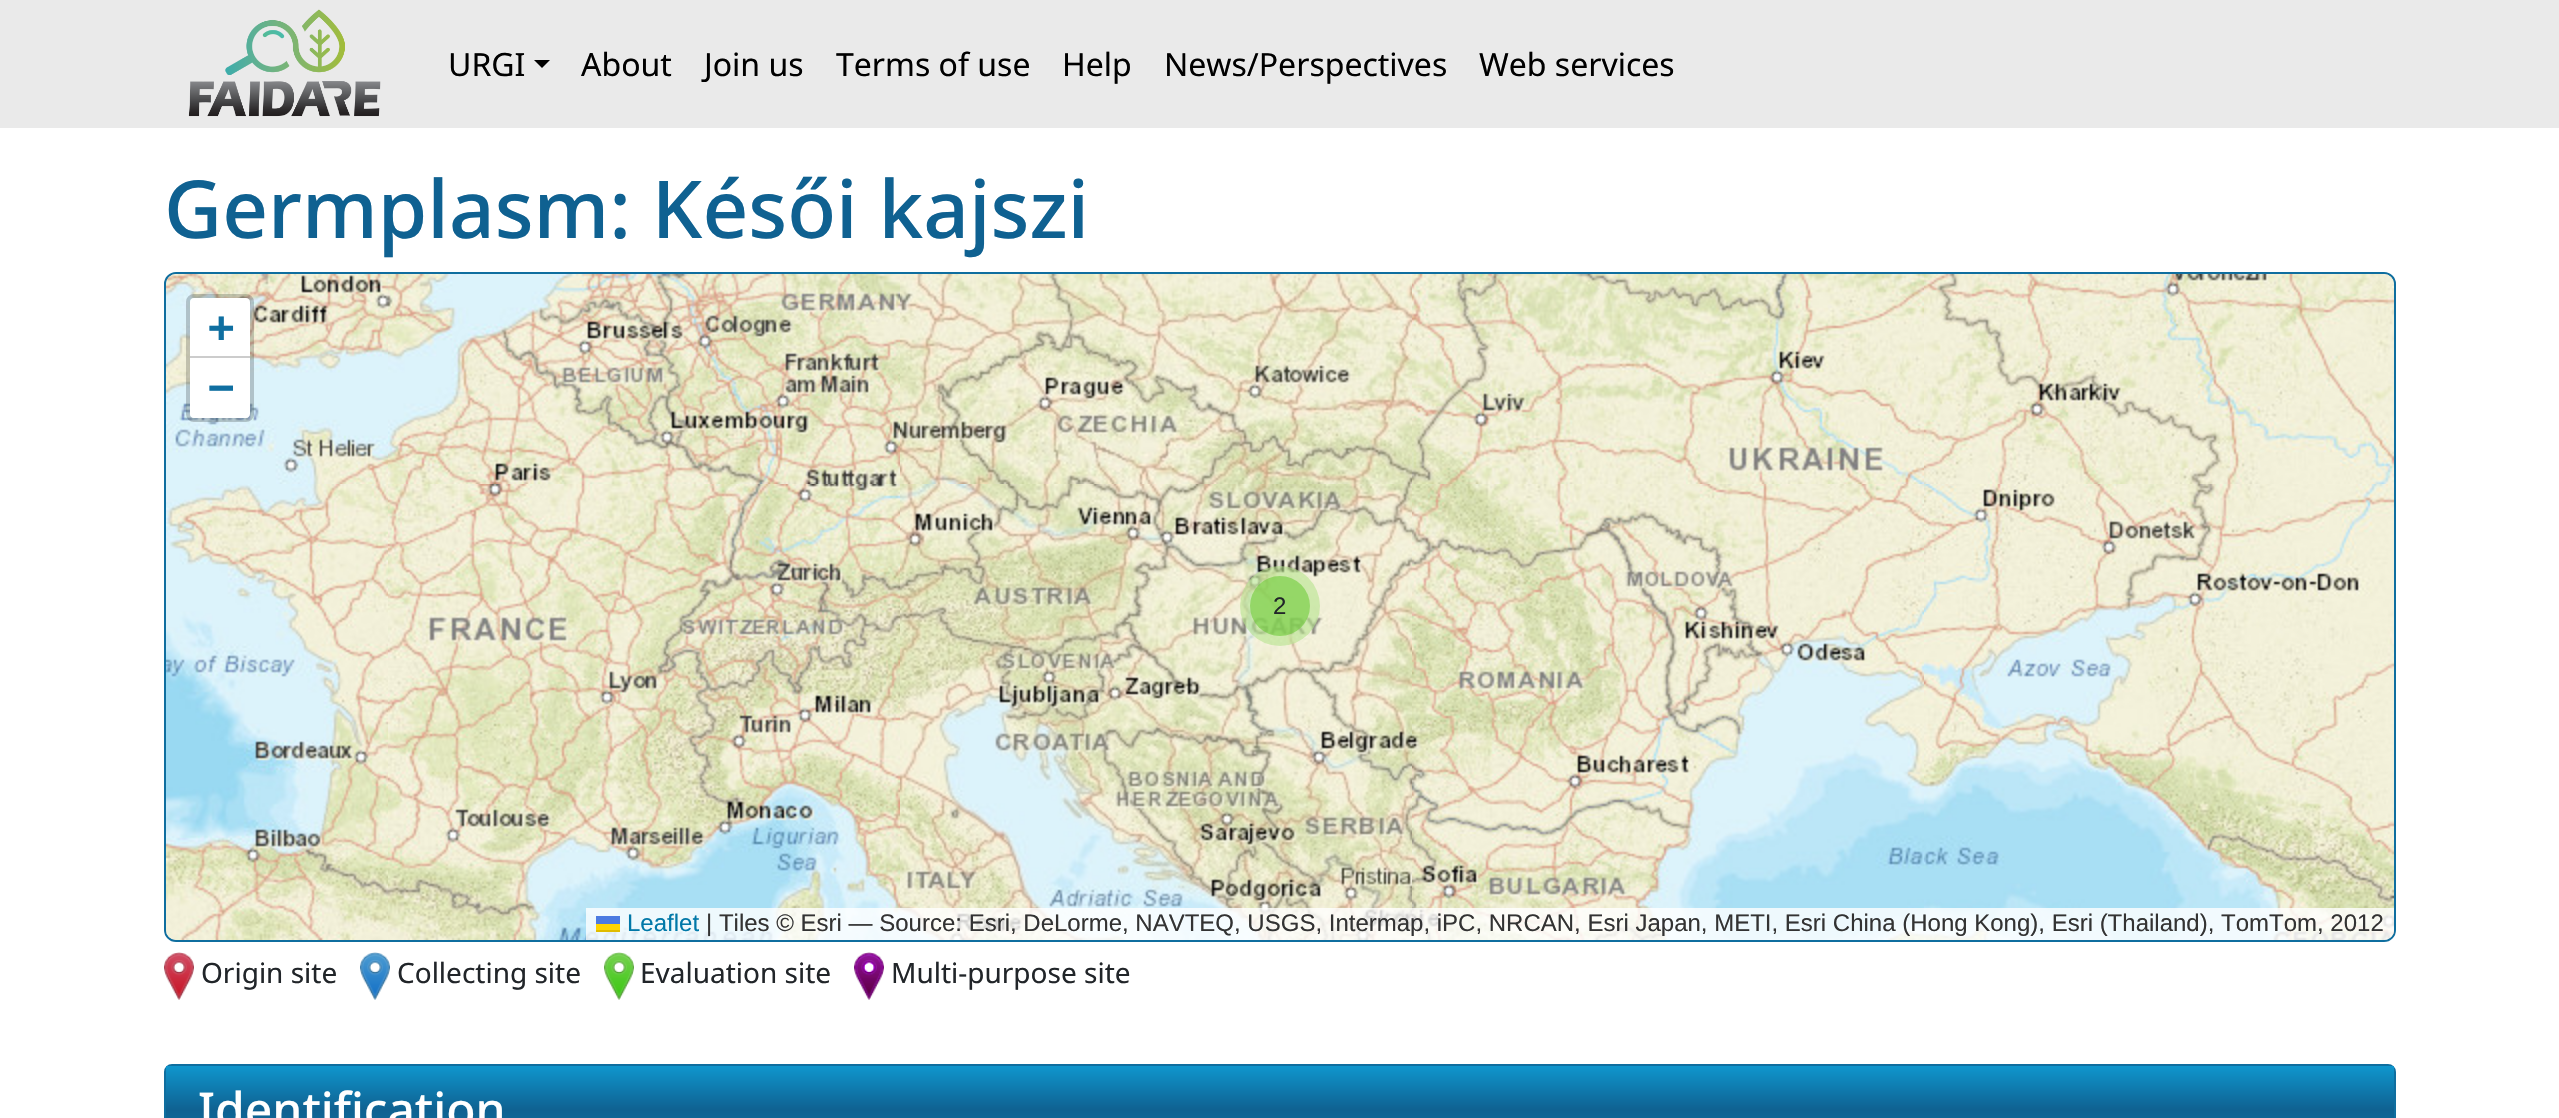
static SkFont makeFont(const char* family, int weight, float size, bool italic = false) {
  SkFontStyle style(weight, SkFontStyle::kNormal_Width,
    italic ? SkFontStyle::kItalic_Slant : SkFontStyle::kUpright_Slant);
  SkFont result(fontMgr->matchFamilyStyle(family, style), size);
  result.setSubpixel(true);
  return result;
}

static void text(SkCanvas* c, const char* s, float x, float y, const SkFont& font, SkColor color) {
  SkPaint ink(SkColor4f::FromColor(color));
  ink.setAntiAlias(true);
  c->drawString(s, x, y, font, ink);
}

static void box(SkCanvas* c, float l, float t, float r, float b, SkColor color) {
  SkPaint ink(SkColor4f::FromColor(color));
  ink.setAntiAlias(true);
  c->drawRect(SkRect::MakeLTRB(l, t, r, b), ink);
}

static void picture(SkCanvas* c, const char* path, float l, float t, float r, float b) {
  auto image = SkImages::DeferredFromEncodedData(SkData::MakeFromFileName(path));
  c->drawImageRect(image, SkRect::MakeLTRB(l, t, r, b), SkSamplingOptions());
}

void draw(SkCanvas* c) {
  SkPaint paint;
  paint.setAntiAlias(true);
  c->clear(0xffffffff);
  box(c, 0, 0, 2559, 128, 0xffeaeaea);
  picture(c, "img_01.png", 188, 9, 381, 117);
  SkFont face1 = makeFont("Noto Sans", 400, 32);
  text(c, "URGI", 448, 76, face1, 0xff000000);
  paint.setColor(0xff000000);
  c->drawPath(SkPathBuilder().moveTo(534, 60).lineTo(550, 60).lineTo(542, 68).close().detach(), paint);
  text(c, "About", 581, 76, face1, 0xff000000);
  text(c, "Join us", 704, 76, face1, 0xff000000);
  text(c, "Terms of use", 836, 76, face1, 0xff000000);
  text(c, "Help", 1062, 76, face1, 0xff000000);
  text(c, "News/Perspectives", 1164, 76, face1, 0xff000000);
  text(c, "Web services", 1479, 76, face1, 0xff000000);
  SkFont face2 = makeFont("Noto Sans", 500, 80);
  text(c, "Germplasm: Késői kajszi", 164, 238, face2, 0xff0f6191);
  paint.setColor(0xffdddddd);
  c->drawRoundRect(SkRect::MakeLTRB(165, 273, 2395, 941), 11, 11, paint);
  paint.setStyle(SkPaint::kStroke_Style);
  paint.setStrokeWidth(2);
  paint.setColor(0xff0f6e9f);
  c->drawRoundRect(SkRect::MakeLTRB(165, 273, 2395, 941), 11, 11, paint);
  picture(c, "img_02.png", 166, 274, 388, 484);
  paint.setStrokeWidth(4);
  paint.setColor(0x33000000);
  c->drawRoundRect(SkRect::MakeLTRB(188, 296, 252, 420), 6, 6, paint);
  paint.setStyle(SkPaint::kFill_Style);
  paint.setColor(0xffffffff);
  c->drawPath(SkPathBuilder().moveTo(194, 298).lineTo(246, 298).cubicTo(248, 298, 250, 300, 250, 302).lineTo(250, 358).lineTo(190, 358).lineTo(190, 302).cubicTo(190, 300, 192, 298, 194, 298).close().detach(), paint);
  box(c, 190, 356, 250, 358, 0xffcccccc);
  SkFont face3 = makeFont("DejaVu Sans Mono", 700, 44);
  text(c, "+", 208, 342, face3, 0xff0f6fa1);
  c->drawPath(SkPathBuilder().moveTo(190, 358).lineTo(250, 358).lineTo(250, 414).cubicTo(250, 416, 248, 418, 246, 418).lineTo(194, 418).cubicTo(192, 418, 190, 416, 190, 414).close().detach(), paint);
  text(c, "−", 208, 402, face3, 0xff0f6fa1);
  picture(c, "img_08.png", 388, 484, 900, 940);
  picture(c, "img_09.png", 900, 484, 1412, 940);
  picture(c, "img_10.png", 1412, 484, 1924, 940);
  picture(c, "img_11.png", 1924, 484, 2394, 940);
  paint.setColor(0xccffffff);
  c->drawPath(SkPathBuilder().moveTo(586, 908).lineTo(2394, 908).lineTo(2394, 930).cubicTo(2394, 935.5f, 2389.5f, 940, 2384, 940).lineTo(586, 940).close().detach(), paint);
  SkFont face4 = makeFont("Liberation Sans", 400, 24);
  text(c, "Leaflet", 627, 931, face4, 0xff0078a8);
  box(c, 596, 916, 620, 924, 0xff4c7be1);
  box(c, 596, 924, 620, 930, 0xffffd500);
  box(c, 596, 930, 620, 932, 0xffe0bc00);
  text(c, "| Tiles © Esri — Source: Esri, DeLorme, NAVTEQ, USGS, Intermap, iPC, NRCAN, Esri Japan, METI, Esri China (Hong Kong), Esri (Thailand), TomTom, 2012", 706, 931, face4, 0xff333333);
  picture(c, "img_03.png", 388, 274, 900, 484);
  picture(c, "img_04.png", 900, 274, 1412, 484);
  picture(c, "img_05.png", 1412, 274, 1924, 484);
  picture(c, "img_06.png", 1924, 274, 2394, 484);
  picture(c, "img_07.png", 166, 484, 388, 940);
  paint.setColor(0x99b6e28d);
  c->drawCircle(1280, 606, 40, paint);
  paint.setColor(0x996ecc39);
  c->drawCircle(1280, 606, 30, paint);
  text(c, "2", 1273, 614, face4, 0xff212529);
  picture(c, "img_12.png", 164, 952, 194, 1000);
  SkFont face5 = makeFont("Noto Sans", 400, 28);
  text(c, "Origin site", 201, 983, face5, 0xff212529);
  picture(c, "img_13.png", 360, 952, 390, 1000);
  text(c, "Collecting site", 397, 983, face5, 0xff212529);
  picture(c, "img_14.png", 604, 952, 634, 1000);
  text(c, "Evaluation site", 640, 983, face5, 0xff212529);
  picture(c, "img_15.png", 854, 952, 884, 1000);
  text(c, "Multi-purpose site", 891, 983, face5, 0xff212529);
  paint.setStyle(SkPaint::kStroke_Style);
  paint.setStrokeWidth(2);
  paint.setColor(0xff0f6e9f);
  c->drawRoundRect(SkRect::MakeLTRB(165, 1065, 2395, 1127), 7, 7, paint);
  paint.setStyle(SkPaint::kFill_Style);
  {
    const SkColor colors[] = {0xff0f96cd, 0xff0f6191, 0xff0f76a5};
    const float stops[] = {0, 0.5f, 1};
    const SkPoint ends[] = {{1280, 1066}, {1280, 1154}};
    paint.setShader(SkGradientShader::MakeLinear(ends, colors, stops, 3, SkTileMode::kClamp));
    paint.setAlpha(255);
  }
  c->drawRect(SkRect::MakeLTRB(166, 1066, 2394, 1118), paint);
  SkFont face6 = makeFont("Noto Sans", 500, 48);
  text(c, "Identification", 198, 1127, face6, 0xffffffff);
}
